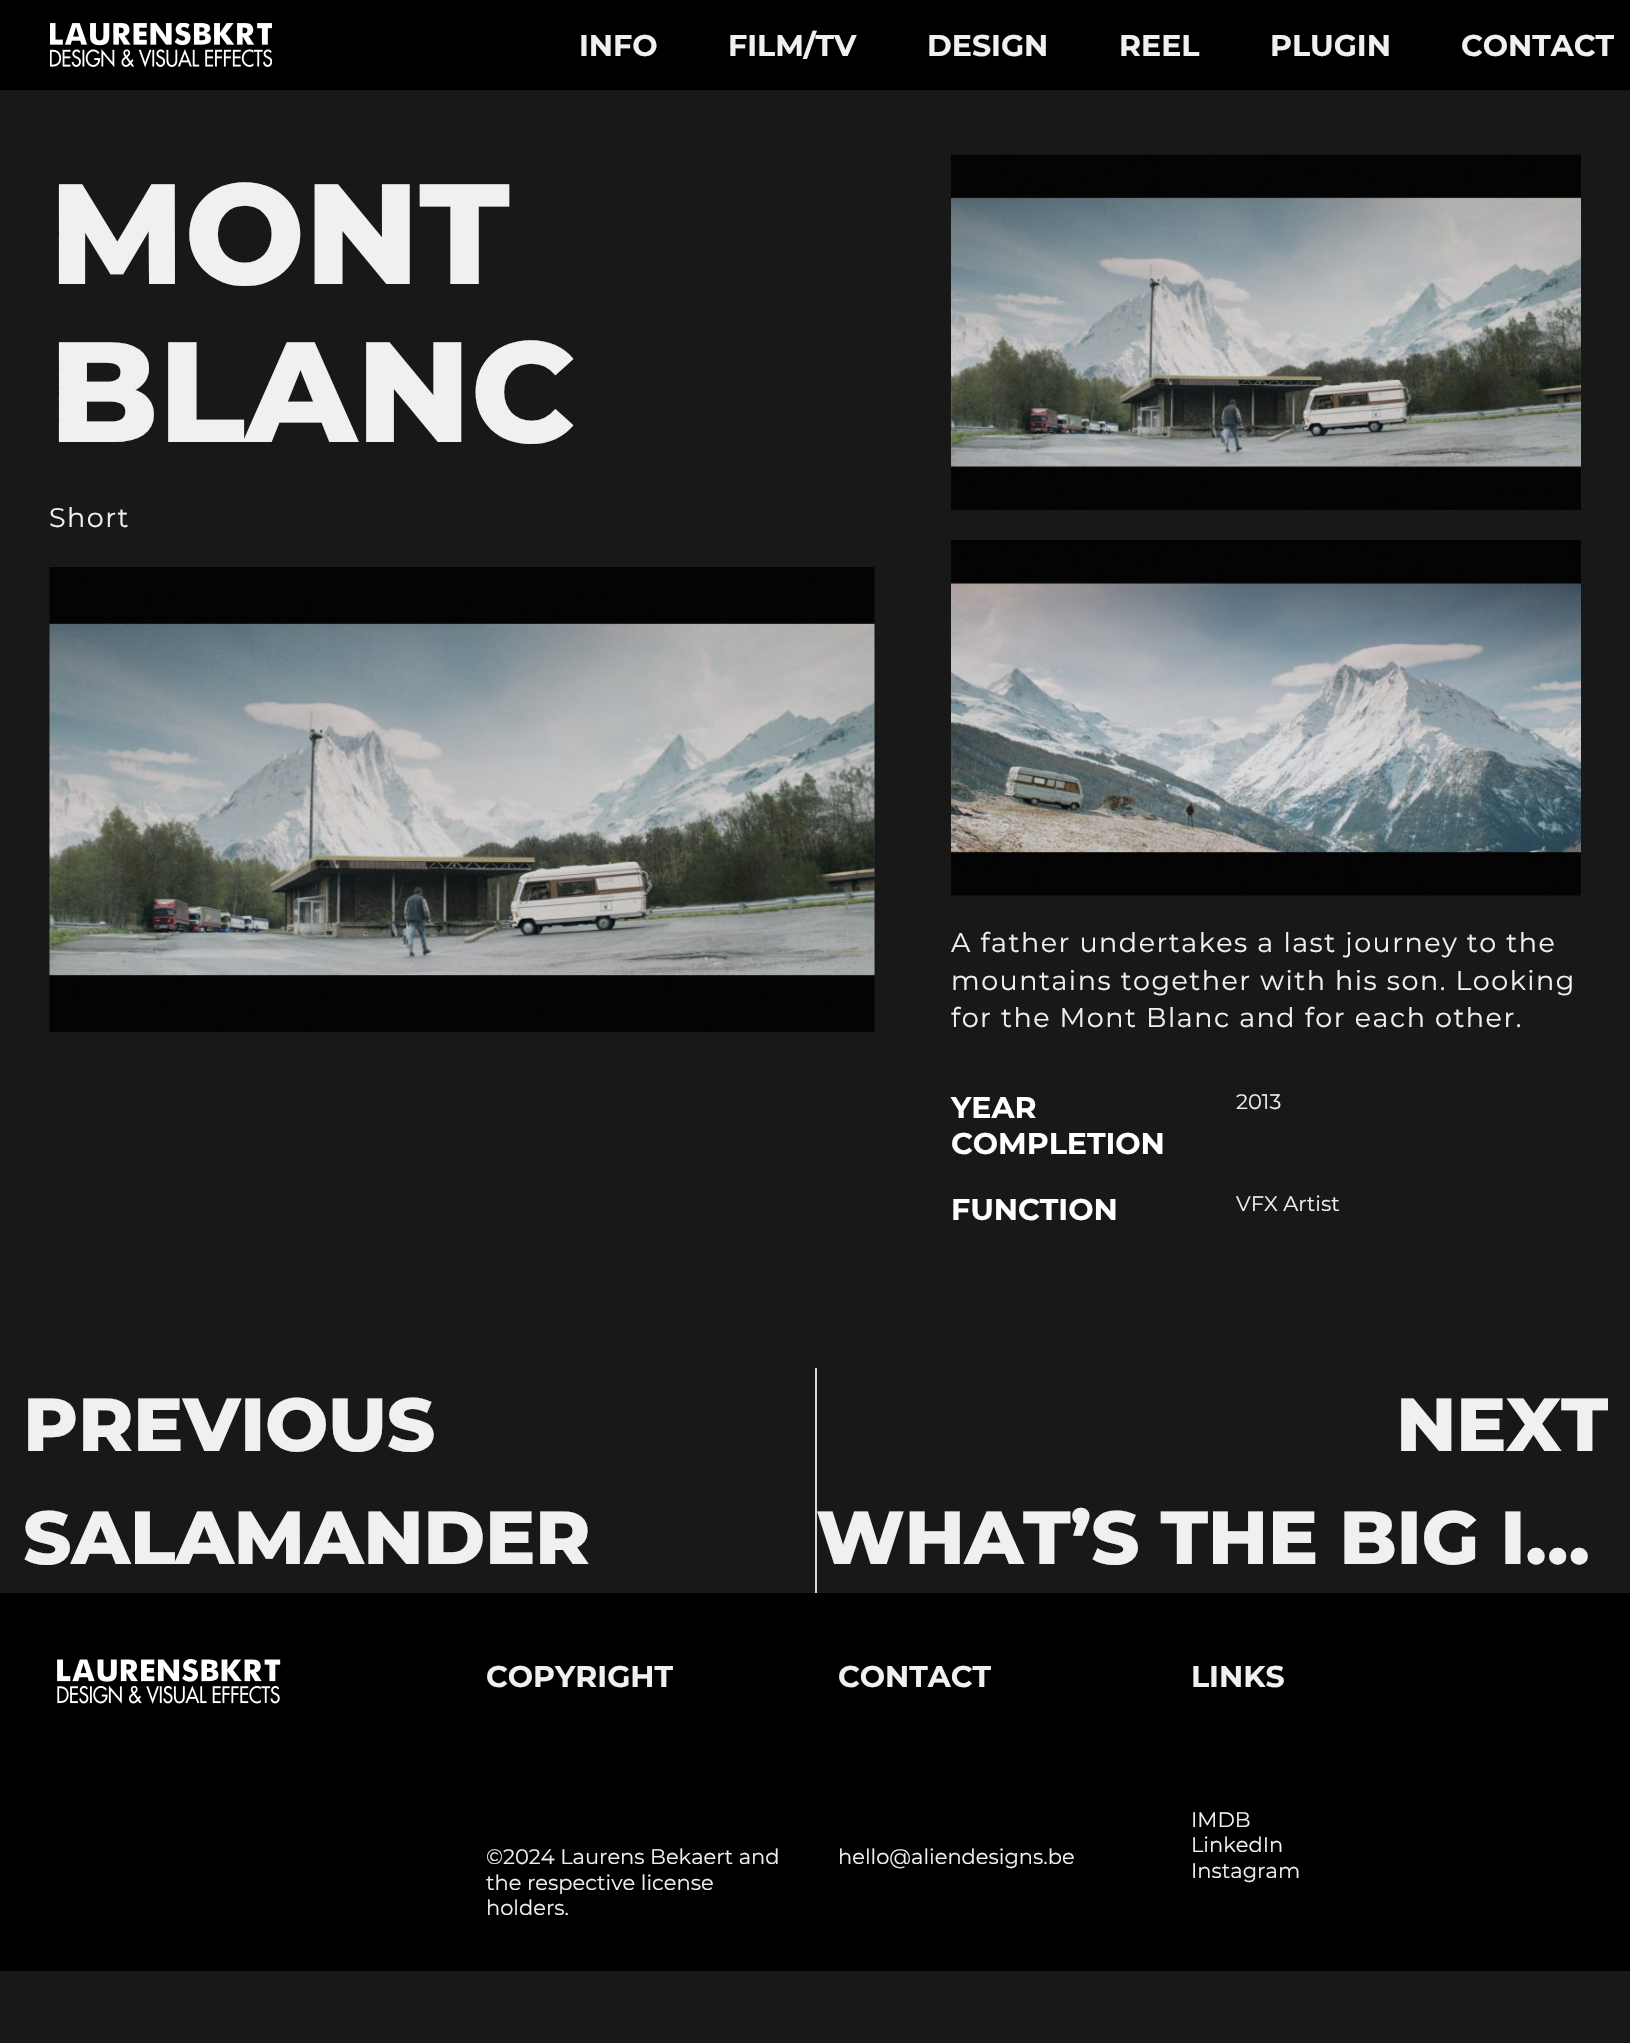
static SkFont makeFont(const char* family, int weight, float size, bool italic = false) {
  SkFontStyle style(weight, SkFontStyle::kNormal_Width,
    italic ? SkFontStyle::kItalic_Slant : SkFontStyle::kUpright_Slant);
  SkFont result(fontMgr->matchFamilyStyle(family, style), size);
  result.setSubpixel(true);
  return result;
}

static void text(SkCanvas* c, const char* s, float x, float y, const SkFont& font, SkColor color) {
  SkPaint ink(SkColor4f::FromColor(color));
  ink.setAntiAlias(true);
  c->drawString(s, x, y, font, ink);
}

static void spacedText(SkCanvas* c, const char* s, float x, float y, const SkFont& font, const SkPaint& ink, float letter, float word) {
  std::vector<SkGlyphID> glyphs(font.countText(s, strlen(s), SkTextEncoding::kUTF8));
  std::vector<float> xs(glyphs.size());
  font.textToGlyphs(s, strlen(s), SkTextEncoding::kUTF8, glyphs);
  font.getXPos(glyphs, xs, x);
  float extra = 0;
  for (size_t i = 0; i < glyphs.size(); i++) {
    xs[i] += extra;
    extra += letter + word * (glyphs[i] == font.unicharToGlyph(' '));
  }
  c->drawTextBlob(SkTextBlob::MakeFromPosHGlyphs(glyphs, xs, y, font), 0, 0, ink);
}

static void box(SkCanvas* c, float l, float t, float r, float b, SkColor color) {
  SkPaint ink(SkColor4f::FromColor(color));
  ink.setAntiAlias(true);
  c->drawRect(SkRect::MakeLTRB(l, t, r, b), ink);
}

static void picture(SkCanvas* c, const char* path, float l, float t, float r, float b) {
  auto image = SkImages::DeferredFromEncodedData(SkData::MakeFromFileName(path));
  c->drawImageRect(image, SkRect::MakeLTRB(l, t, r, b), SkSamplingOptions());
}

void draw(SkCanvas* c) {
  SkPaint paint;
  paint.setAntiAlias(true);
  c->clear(0xff181818);
  box(c, 0, 0, 1630, 90, 0xff000000);
  picture(c, "img_01.png", 50, 23, 272, 68);
  SkFont face1 = makeFont("Montserrat", 700, 30);
  text(c, "INFO", 579, 56, face1, 0xfff0f0f0);
  text(c, "FILM/TV", 728, 56, face1, 0xfff0f0f0);
  text(c, "DESIGN", 927, 56, face1, 0xfff0f0f0);
  text(c, "REEL", 1119, 56, face1, 0xfff0f0f0);
  text(c, "PLUGIN", 1270, 56, face1, 0xfff0f0f0);
  text(c, "CONTACT", 1461, 56, face1, 0xfff0f0f0);
  SkFont face2 = makeFont("Montserrat", 800, 142.5f);
  paint.setColor(0xfff0f0f0);
  spacedText(c, "MONT", 49, 284, face2, paint, -0.4f, 0);
  spacedText(c, "BLANC", 49, 442, face2, paint, -0.4f, 0);
  SkFont face3 = makeFont("Montserrat", 400, 27);
  spacedText(c, "Short", 49, 527, face3, paint, 1.5f, 0);
  picture(c, "img_02.png", 49, 567, 875, 1032);
  picture(c, "img_03.png", 951, 154, 1581, 510);
  picture(c, "img_04.png", 951, 540, 1581, 896);
  spacedText(c, "A father undertakes a last journey to the", 951, 952, face3, paint, 1.5f, 0);
  spacedText(c, "mountains together with his son. Looking", 951, 990, face3, paint, 1.5f, 0);
  spacedText(c, "for the Mont Blanc and for each other.", 951, 1027, face3, paint, 1.5f, 0);
  text(c, "YEAR", 951, 1118, face1, 0xffffffff);
  text(c, "COMPLETION", 951, 1154, face1, 0xffffffff);
  SkFont face4 = makeFont("Montserrat", 400, 21);
  text(c, "2013", 1236, 1109, face4, 0xfff0f0f0);
  text(c, "FUNCTION", 951, 1220, face1, 0xffffffff);
  text(c, "VFX Artist", 1236, 1211, face4, 0xfff0f0f0);
  SkFont face5 = makeFont("Montserrat", 800, 75);
  spacedText(c, "PREVIOUS", 23, 1451, face5, paint, -0.4f, 0);
  spacedText(c, "SALAMANDER", 23, 1564, face5, paint, -0.4f, 0);
  box(c, 815, 1368, 817, 1593, 0xffd5d8dc);
  c->save();
  c->clipRect(SkRect::MakeLTRB(816, 1368, 1608, 1481));
  spacedText(c, "NEXT", 1396, 1451, face5, paint, -0.4f, 0);
  c->restore();
  spacedText(c, "WHAT’S THE BIG I…", 816, 1564, face5, paint, -0.4f, 0);
  box(c, 0, 1593, 1630, 1971, 0xff000000);
  picture(c, "img_05.png", 57, 1659, 281, 1704);
  text(c, "COPYRIGHT", 486, 1687, face1, 0xfff0f0f0);
  text(c, "©2024 Laurens Bekaert and", 486, 1864, face4, 0xfff0f0f0);
  text(c, "the respective license", 486, 1890, face4, 0xfff0f0f0);
  text(c, "holders.", 486, 1915, face4, 0xfff0f0f0);
  text(c, "CONTACT", 838, 1687, face1, 0xfff0f0f0);
  text(c, "hello@aliendesigns.be", 838, 1864, face4, 0xfff0f0f0);
  text(c, "LINKS", 1191, 1687, face1, 0xfff0f0f0);
  text(c, "IMDB", 1191, 1827, face4, 0xfff0f0f0);
  text(c, "LinkedIn", 1191, 1852, face4, 0xfff0f0f0);
  text(c, "Instagram", 1191, 1878, face4, 0xfff0f0f0);
}
